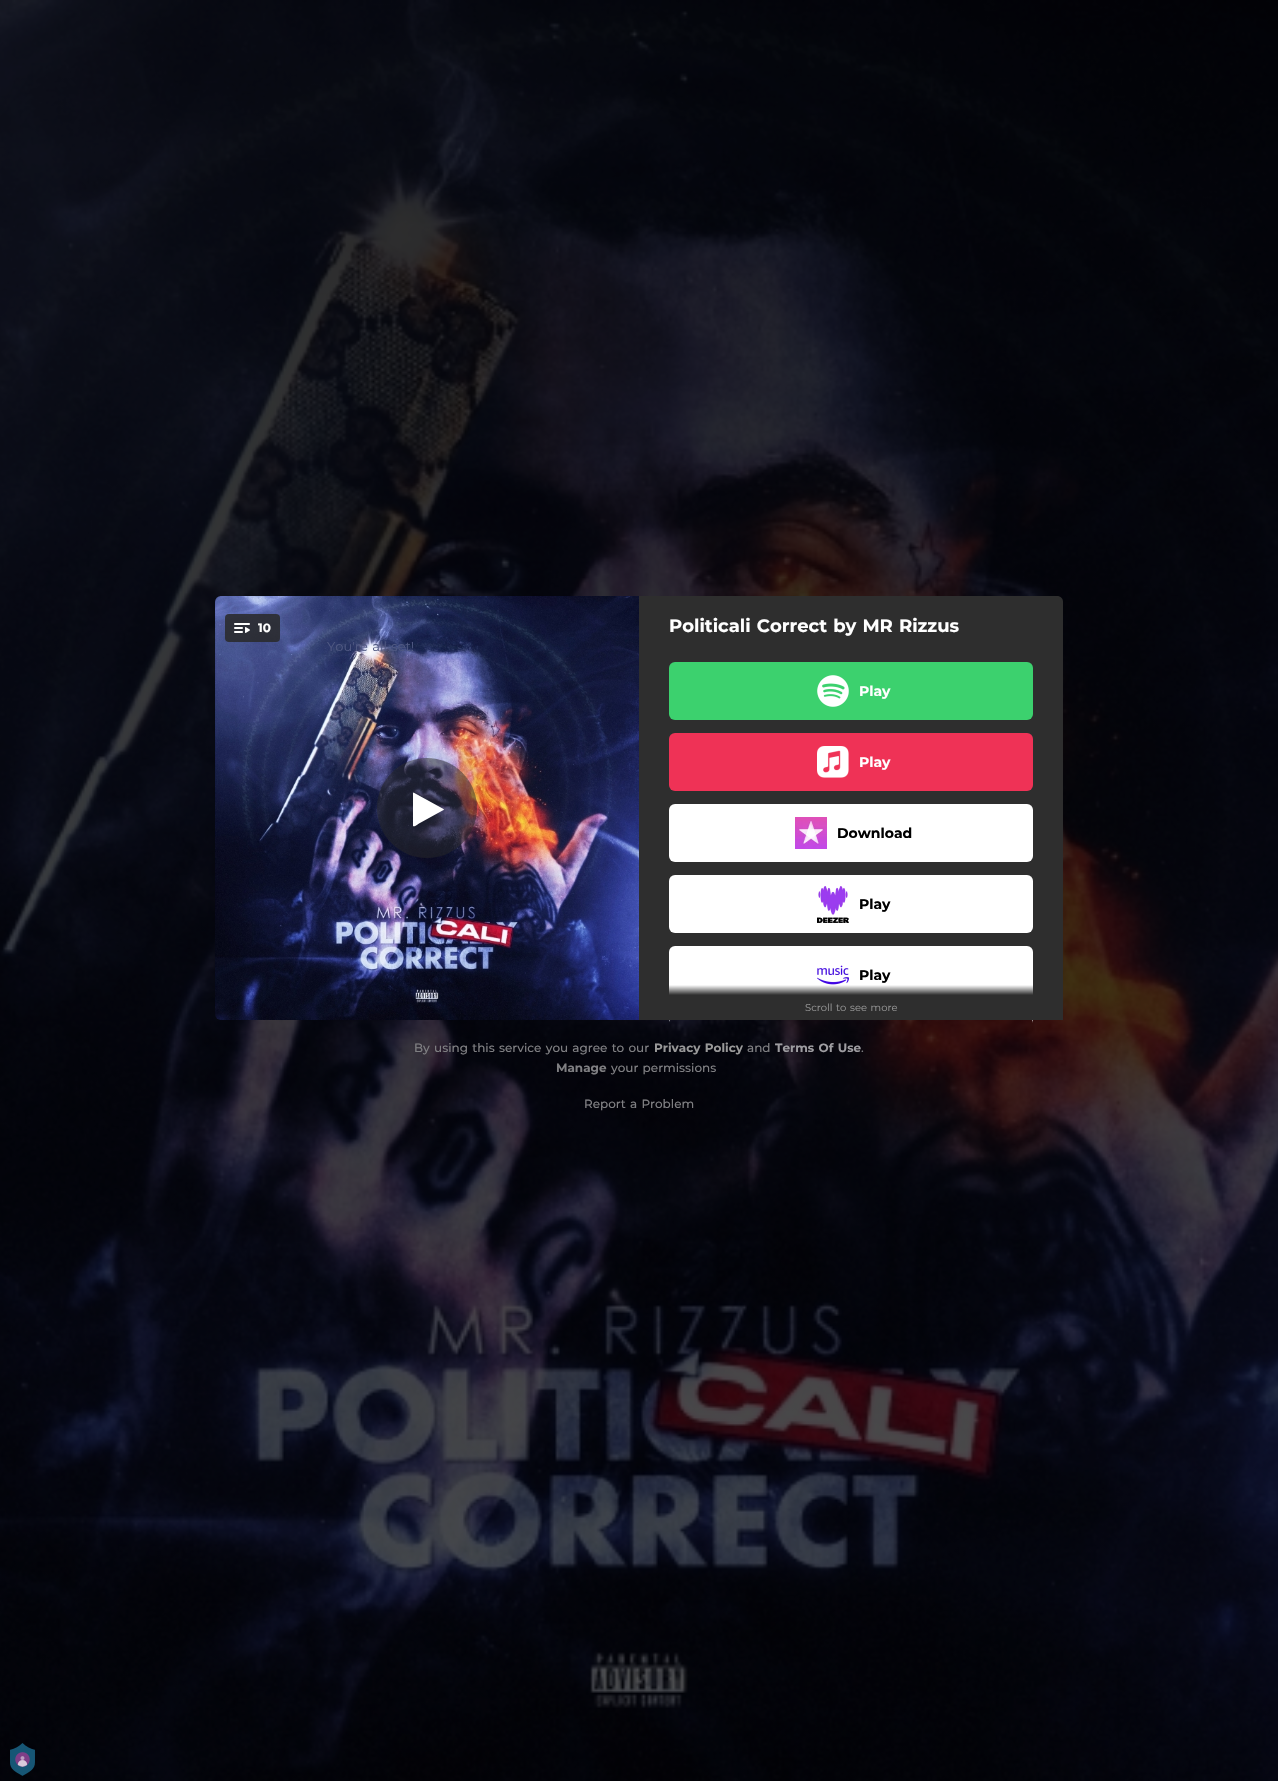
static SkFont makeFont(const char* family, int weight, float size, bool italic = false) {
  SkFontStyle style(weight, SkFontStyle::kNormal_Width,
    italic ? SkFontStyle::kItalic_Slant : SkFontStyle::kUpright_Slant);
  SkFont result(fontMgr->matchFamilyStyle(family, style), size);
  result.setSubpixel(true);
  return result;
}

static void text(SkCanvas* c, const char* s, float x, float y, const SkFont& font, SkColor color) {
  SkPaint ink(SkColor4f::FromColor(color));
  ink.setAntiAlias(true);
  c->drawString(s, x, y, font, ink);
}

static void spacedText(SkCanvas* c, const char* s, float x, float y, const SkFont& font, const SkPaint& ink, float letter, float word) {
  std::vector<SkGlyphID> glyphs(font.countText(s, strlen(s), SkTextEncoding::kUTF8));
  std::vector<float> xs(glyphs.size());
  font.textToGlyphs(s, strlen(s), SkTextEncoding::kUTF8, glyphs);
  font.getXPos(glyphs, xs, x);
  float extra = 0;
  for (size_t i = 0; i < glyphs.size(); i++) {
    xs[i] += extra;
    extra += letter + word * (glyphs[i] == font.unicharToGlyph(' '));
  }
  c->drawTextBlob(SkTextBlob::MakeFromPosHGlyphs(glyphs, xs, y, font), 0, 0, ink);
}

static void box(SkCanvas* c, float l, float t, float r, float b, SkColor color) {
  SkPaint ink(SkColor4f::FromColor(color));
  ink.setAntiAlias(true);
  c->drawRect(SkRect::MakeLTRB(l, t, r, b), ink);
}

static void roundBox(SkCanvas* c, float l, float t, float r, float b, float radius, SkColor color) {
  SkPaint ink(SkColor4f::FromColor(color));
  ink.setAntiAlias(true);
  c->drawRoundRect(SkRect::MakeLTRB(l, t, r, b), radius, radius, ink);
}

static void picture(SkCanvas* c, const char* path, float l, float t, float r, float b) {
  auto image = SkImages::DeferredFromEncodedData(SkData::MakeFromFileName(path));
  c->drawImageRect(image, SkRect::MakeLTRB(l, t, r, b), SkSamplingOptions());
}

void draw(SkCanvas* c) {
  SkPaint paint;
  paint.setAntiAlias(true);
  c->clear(0xffffffff);
  picture(c, "img_01.png", 0, 0, 1278, 1781);
  picture(c, "img_02.png", 215, 596, 639, 1020);
  roundBox(c, 225, 614, 280, 642, 4, 0xd9282828);
  picture(c, "img_03.png", 234, 623, 250, 633);
  SkFont face1 = makeFont("Montserrat", 700, 12);
  text(c, "10", 258, 632, face1, 0xffffffff);
  paint.setColor(0x80282828);
  c->drawCircle(427, 808, 50, paint);
  paint.setColor(0xffffffff);
  c->drawPath(SkPathBuilder().moveTo(443.5f, 810).lineTo(419, 823.5f).cubicTo(418.5f, 824, 414, 827.5f, 413, 826).lineTo(413, 793).lineTo(413.5f, 792.5f).lineTo(443.5f, 809).lineTo(444, 809.5f).lineTo(443.5f, 810).detach(), paint);
  SkFont face2 = makeFont("Montserrat", 400, 13);
  paint.setColor(0xff4f5882);
  spacedText(c, "You're all set!", 327, 651, face2, paint, 0, 1);
  paint.setColor(0xff2e2e2e);
  c->drawPath(SkPathBuilder().moveTo(639, 596).lineTo(1057, 596).cubicTo(1060.5f, 596, 1063, 598.5f, 1063, 602).lineTo(1063, 1014).cubicTo(1063, 1017.5f, 1060.5f, 1020, 1057, 1020).lineTo(639, 1020).close().detach(), paint);
  SkFont face3 = makeFont("Montserrat", 700, 18);
  paint.setColor(0xffffffff);
  spacedText(c, "Politicali Correct by MR Rizzus", 669, 632, face3, paint, 0, 1);
  roundBox(c, 669, 662, 1033, 720, 6, 0xff3cd16e);
  picture(c, "img_04.png", 817, 675, 849, 707);
  SkFont face4 = makeFont("Montserrat", 700, 14);
  text(c, "Play", 859, 696, face4, 0xffffffff);
  roundBox(c, 669, 733, 1033, 791, 6, 0xffef3256);
  picture(c, "img_05.png", 817, 746, 849, 778);
  text(c, "Play", 859, 767, face4, 0xffffffff);
  roundBox(c, 669, 804, 1033, 862, 6, 0xffffffff);
  picture(c, "img_06.png", 795, 817, 827, 849);
  text(c, "Download", 837, 838, face4, 0xff000000);
  roundBox(c, 669, 875, 1033, 933, 6, 0xffffffff);
  picture(c, "img_07.png", 817, 886, 849, 923);
  text(c, "Play", 859, 909, face4, 0xff000000);
  roundBox(c, 669, 946, 1033, 1004, 6, 0xffffffff);
  picture(c, "img_08.png", 817, 965, 849, 985);
  text(c, "Play", 859, 980, face4, 0xff000000);
  c->drawPath(SkPathBuilder().moveTo(675, 1017).lineTo(1027, 1017).cubicTo(1030.5f, 1017, 1033, 1019.5f, 1033, 1023).lineTo(1033, 1020).lineTo(669, 1020).lineTo(669, 1023).cubicTo(669, 1019.5f, 671.5f, 1017, 675, 1017).close().detach(), paint);
  {
    const SkColor colors[] = {0xff2e2e2e, 0x002e2e2e};
    const float stops[] = {0, 1};
    const SkPoint ends[] = {{851, 995}, {851, 985}};
    paint.setShader(SkGradientShader::MakeLinear(ends, colors, stops, 2, SkTileMode::kClamp));
    paint.setAlpha(255);
  }
  c->drawRect(SkRect::MakeLTRB(669, 985, 1033, 995), paint);
  box(c, 669, 995, 1063, 1020, 0xff2e2e2e);
  SkFont face5 = makeFont("Montserrat", 400, 10);
  paint.setShader(nullptr);
  paint.setColor(0xff999999);
  spacedText(c, "Scroll to see more", 805, 1011, face5, paint, 0, 1);
  SkFont face6 = makeFont("Montserrat", 500, 12);
  paint.setColor(0xff7f7f82);
  spacedText(c, "By using this service you agree to our", 414, 1052, face6, paint, 0, 1);
  paint.setColor(0xff999999);
  spacedText(c, "Privacy Policy", 654, 1052, face1, paint, 0, 1);
  text(c, "and", 747, 1052, face6, 0xff7f7f82);
  paint.setColor(0xff9e9da1);
  spacedText(c, "Terms Of Use", 775, 1052, face1, paint, 0, 1);
  text(c, ".", 861, 1052, face6, 0xff7f7f82);
  text(c, "Manage", 556, 1072, face1, 0xff7f7f82);
  paint.setColor(0xff7f7f82);
  spacedText(c, "your permissions", 611, 1072, face6, paint, 0, 1);
  spacedText(c, "Report a Problem", 584, 1108, face6, paint, 0, 1);
  picture(c, "img_09.png", 10, 1743, 35, 1776);
}
